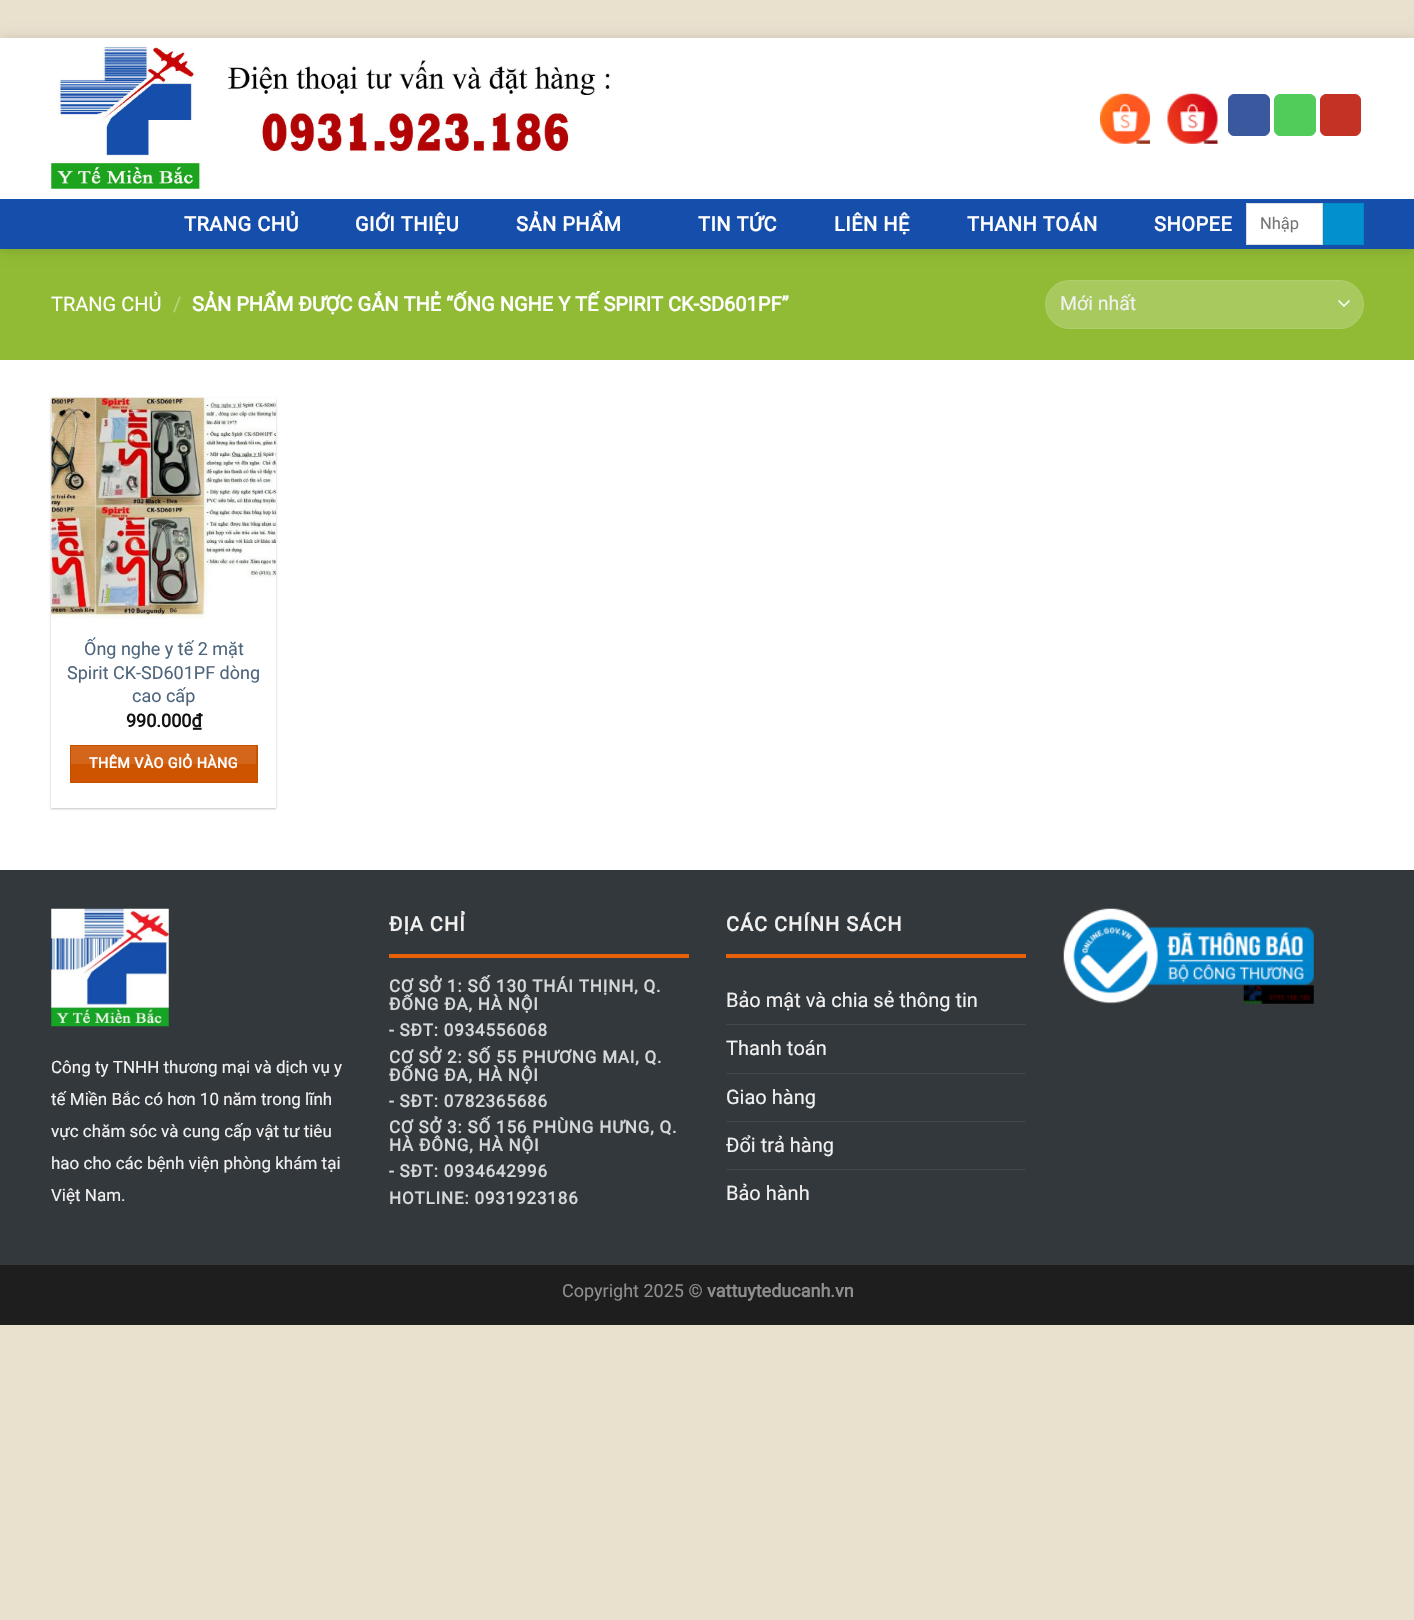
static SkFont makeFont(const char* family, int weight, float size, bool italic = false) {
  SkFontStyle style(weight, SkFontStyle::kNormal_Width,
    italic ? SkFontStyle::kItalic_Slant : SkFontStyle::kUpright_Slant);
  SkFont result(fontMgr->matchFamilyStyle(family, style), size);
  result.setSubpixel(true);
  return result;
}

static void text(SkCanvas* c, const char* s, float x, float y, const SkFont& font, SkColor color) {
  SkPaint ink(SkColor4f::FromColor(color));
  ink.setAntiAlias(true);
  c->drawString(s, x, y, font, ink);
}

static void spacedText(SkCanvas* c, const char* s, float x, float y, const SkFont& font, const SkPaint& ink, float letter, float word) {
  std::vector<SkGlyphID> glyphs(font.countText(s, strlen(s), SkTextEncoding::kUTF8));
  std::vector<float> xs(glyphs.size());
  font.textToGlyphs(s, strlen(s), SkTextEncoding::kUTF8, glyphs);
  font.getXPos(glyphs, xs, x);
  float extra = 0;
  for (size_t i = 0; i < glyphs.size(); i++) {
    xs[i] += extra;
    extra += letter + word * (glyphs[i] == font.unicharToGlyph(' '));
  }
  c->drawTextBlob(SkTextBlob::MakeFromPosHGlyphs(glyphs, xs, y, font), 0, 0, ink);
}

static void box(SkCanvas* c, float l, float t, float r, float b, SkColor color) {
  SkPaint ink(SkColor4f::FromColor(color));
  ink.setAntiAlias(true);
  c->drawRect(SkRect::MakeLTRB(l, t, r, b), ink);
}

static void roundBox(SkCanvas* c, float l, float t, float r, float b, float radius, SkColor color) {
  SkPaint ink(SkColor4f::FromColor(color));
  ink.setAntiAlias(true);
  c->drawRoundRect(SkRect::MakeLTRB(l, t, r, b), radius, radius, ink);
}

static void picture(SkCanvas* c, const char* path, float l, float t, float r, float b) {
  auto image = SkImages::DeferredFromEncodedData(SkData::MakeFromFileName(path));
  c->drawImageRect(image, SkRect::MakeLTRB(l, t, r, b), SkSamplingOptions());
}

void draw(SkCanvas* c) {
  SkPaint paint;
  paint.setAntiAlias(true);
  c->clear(0xffe9e0ce);
  box(c, 0, 360, 1414, 870, 0xffffffff);
  box(c, 0, 249, 1414, 360, 0xff91bb34);
  paint.setColor(0x26000000);
  paint.setMaskFilter(SkMaskFilter::MakeBlur(kNormal_SkBlurStyle, 6));
  c->drawRect(SkRect::MakeLTRB(1, 39, 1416, 250), paint);
  paint.setMaskFilter(nullptr);
  box(c, 0, 38, 1414, 199, 0xffffffff);
  picture(c, "img_01.png", 51, 47, 611, 189);
  picture(c, "img_02.png", 1100, 93, 1150, 144);
  picture(c, "img_03.png", 1167, 93, 1218, 144);
  paint.setColor(0xff3a589d);
  c->drawRoundRect(SkRect::MakeLTRB(1228.5f, 94.5f, 1269.5f, 135.5f), 5.5f, 5.5f, paint);
  paint.setStyle(SkPaint::kStroke_Style);
  paint.setStrokeWidth(1);
  c->drawRoundRect(SkRect::MakeLTRB(1228.5f, 94.5f, 1269.5f, 135.5f), 5.5f, 5.5f, paint);
  paint.setStyle(SkPaint::kFill_Style);
  paint.setColor(0xff51cb5a);
  c->drawRoundRect(SkRect::MakeLTRB(1274.5f, 94.5f, 1315.5f, 135.5f), 5.5f, 5.5f, paint);
  paint.setStyle(SkPaint::kStroke_Style);
  c->drawRoundRect(SkRect::MakeLTRB(1274.5f, 94.5f, 1315.5f, 135.5f), 5.5f, 5.5f, paint);
  paint.setStyle(SkPaint::kFill_Style);
  paint.setColor(0xffc33223);
  c->drawRoundRect(SkRect::MakeLTRB(1320.5f, 94.5f, 1360.5f, 135.5f), 5.5f, 5.5f, paint);
  paint.setStyle(SkPaint::kStroke_Style);
  c->drawRoundRect(SkRect::MakeLTRB(1320.5f, 94.5f, 1360.5f, 135.5f), 5.5f, 5.5f, paint);
  box(c, 0, 199, 1414, 249, 0xff164eab);
  SkFont face1 = makeFont("Roboto", 700, 20);
  paint.setStyle(SkPaint::kFill_Style);
  paint.setColor(0xffffffff);
  spacedText(c, "TRANG CHỦ", 184, 231, face1, paint, 0.5f, 0);
  spacedText(c, "GIỚI THIỆU", 355, 231, face1, paint, 0.5f, 0);
  spacedText(c, "SẢN PHẨM", 516, 231, face1, paint, 0.5f, 0);
  spacedText(c, "TIN TỨC", 698, 231, face1, paint, 0.5f, 0);
  spacedText(c, "LIÊN HỆ", 834, 231, face1, paint, 0.5f, 0);
  spacedText(c, "THANH TOÁN", 967, 231, face1, paint, 0.5f, 0);
  spacedText(c, "SHOPEE", 1154, 231, face1, paint, 0.5f, 0);
  c->drawRect(SkRect::MakeLTRB(1246.5f, 203.5f, 1322.5f, 244.5f), paint);
  paint.setStyle(SkPaint::kStroke_Style);
  paint.setColor(0xffdddddd);
  c->drawRect(SkRect::MakeLTRB(1246.5f, 203.5f, 1322.5f, 244.5f), paint);
  SkFont face2 = makeFont("Roboto", 400, 16.5f);
  text(c, "Nhập", 1260, 229, face2, 0xff757575);
  paint.setStyle(SkPaint::kFill_Style);
  paint.setColor(0xff0091ce);
  c->drawRect(SkRect::MakeLTRB(1323.5f, 203.5f, 1363.5f, 244.5f), paint);
  paint.setStyle(SkPaint::kStroke_Style);
  paint.setColor(0xff008ac4);
  c->drawRect(SkRect::MakeLTRB(1323.5f, 203.5f, 1363.5f, 244.5f), paint);
  SkFont face3 = makeFont("Roboto", 400, 20);
  text(c, "TRANG CHỦ", 51, 311, face3, 0xffffffff);
  text(c, "/", 173, 311, face3, 0xffb8d37b);
  text(c, "SẢN PHẨM ĐƯỢC GẮN THẺ “ỐNG NGHE Y TẾ SPIRIT CK-SD601PF”", 192, 311, face1, 0xffffffff);
  roundBox(c, 1045, 280, 1364, 329, 24.5f, 0xffa7c95d);
  paint.setStrokeWidth(1.7f);
  paint.setStrokeCap(SkPaint::kRound_Cap);
  paint.setStrokeJoin(SkPaint::kRound_Join);
  paint.setColor(0xffffffff);
  c->drawPath(SkPathBuilder().moveTo(1339, 301).lineTo(1344, 306).lineTo(1349, 301).detach(), paint);
  paint.setStrokeWidth(1);
  paint.setStrokeCap(SkPaint::kButt_Cap);
  paint.setStrokeJoin(SkPaint::kMiter_Join);
  paint.setColor(0x17ffffff);
  c->drawRoundRect(SkRect::MakeLTRB(1045.5f, 280.5f, 1363.5f, 328.5f), 24, 24, paint);
  SkFont face4 = makeFont("Roboto", 400, 19.5f);
  text(c, "Mới nhất", 1060, 310, face4, 0xfff1f1f1);
  paint.setStyle(SkPaint::kFill_Style);
  paint.setColor(0x3d000000);
  paint.setMaskFilter(SkMaskFilter::MakeBlur(kNormal_SkBlurStyle, 1));
  c->drawRect(SkRect::MakeLTRB(51, 399, 276, 809), paint);
  paint.setMaskFilter(nullptr);
  box(c, 51, 398, 276, 808, 0xffffffff);
  picture(c, "img_04.png", 51, 397, 277, 622);
  SkFont face5 = makeFont("Roboto", 400, 18);
  text(c, "Ống nghe y tế 2 mặt", 84, 655, face5, 0xff4e657b);
  text(c, "Spirit CK-SD601PF dòng", 67, 679, face5, 0xff4e657b);
  text(c, "cao cấp", 132, 702, face5, 0xff4e657b);
  SkFont face6 = makeFont("Roboto", 700, 18);
  text(c, "990.000₫", 126, 727, face6, 0xff111111);
  paint.setColor(0xffce5400);
  c->drawRect(SkRect::MakeLTRB(70.5f, 745.5f, 257.5f, 782.5f), paint);
  paint.setStyle(SkPaint::kStroke_Style);
  paint.setColor(0xffc45000);
  c->drawRect(SkRect::MakeLTRB(70.5f, 745.5f, 257.5f, 782.5f), paint);
  box(c, 71, 746, 256, 764, 0x1affffff);
  SkFont face7 = makeFont("Roboto", 700, 14.4f);
  paint.setStyle(SkPaint::kFill_Style);
  paint.setColor(0xffffffff);
  spacedText(c, "THÊM VÀO GIỎ HÀNG", 89, 768, face7, paint, 0.4f, 0);
  box(c, 0, 871, 1414, 1265, 0xff33383c);
  box(c, 0, 870, 1414, 871, 0xff303539);
  picture(c, "img_05.png", 51, 908, 169, 1027);
  SkFont face8 = makeFont("Roboto", 400, 17);
  text(c, "Công ty TNHH thương mại và dịch vụ y", 51, 1073, face8, 0xfff1f1f1);
  text(c, "tế Miền Bắc có hơn 10 năm trong lĩnh", 51, 1105, face8, 0xfff1f1f1);
  text(c, "vực chăm sóc và cung cấp vật tư tiêu", 51, 1137, face8, 0xfff1f1f1);
  text(c, "hao cho các bệnh viện phòng khám tại", 51, 1169, face8, 0xfff1f1f1);
  text(c, "Việt Nam.", 51, 1201, face8, 0xfff1f1f1);
  paint.setColor(0xfff1f1f1);
  spacedText(c, "ĐỊA CHỈ", 389, 931, face1, paint, 1, 0);
  box(c, 389, 954, 689, 958, 0xffe86108);
  SkFont face9 = makeFont("Roboto", 700, 17);
  paint.setColor(0xffd6d7d8);
  spacedText(c, "CƠ SỞ 1: SỐ 130 THÁI THỊNH, Q.", 389, 992, face9, paint, 0.85f, 0);
  spacedText(c, "ĐỐNG ĐA, HÀ NỘI", 389, 1010, face9, paint, 0.85f, 0);
  spacedText(c, "- SĐT: 0934556068", 389, 1036, face9, paint, 0.85f, 0);
  spacedText(c, "CƠ SỞ 2: SỐ 55 PHƯƠNG MAI, Q.", 389, 1063, face9, paint, 0.85f, 0);
  spacedText(c, "ĐỐNG ĐA, HÀ NỘI", 389, 1081, face9, paint, 0.85f, 0);
  spacedText(c, "- SĐT: 0782365686", 389, 1107, face9, paint, 0.85f, 0);
  spacedText(c, "CƠ SỞ 3: SỐ 156 PHÙNG HƯNG, Q.", 389, 1133, face9, paint, 0.85f, 0);
  spacedText(c, "HÀ ĐÔNG, HÀ NỘI", 389, 1151, face9, paint, 0.85f, 0);
  spacedText(c, "- SĐT: 0934642996", 389, 1177, face9, paint, 0.85f, 0);
  spacedText(c, "HOTLINE: 0931923186", 389, 1204, face9, paint, 0.85f, 0);
  paint.setColor(0xfff1f1f1);
  spacedText(c, "CÁC CHÍNH SÁCH", 726, 931, face1, paint, 1, 0);
  box(c, 726, 954, 1026, 958, 0xffe86108);
  text(c, "Bảo mật và chia sẻ thông tin", 726, 1007, face3, 0xfff1f1f1);
  box(c, 726, 1024, 1026, 1025, 0xff43484c);
  text(c, "Thanh toán", 726, 1055, face3, 0xfff1f1f1);
  box(c, 726, 1073, 1026, 1074, 0xff43484c);
  text(c, "Giao hàng", 726, 1104, face3, 0xfff1f1f1);
  box(c, 726, 1121, 1026, 1122, 0xff43484c);
  text(c, "Đổi trả hàng", 726, 1152, face3, 0xfff1f1f1);
  box(c, 726, 1169, 1026, 1170, 0xff43484c);
  text(c, "Bảo hành", 726, 1200, face3, 0xfff1f1f1);
  picture(c, "img_06.png", 1063, 908, 1314, 1004);
  box(c, 0, 1265, 1414, 1325, 0xff1e1e1e);
  text(c, "Copyright 2025 ©", 562, 1297, face5, 0xff8f8f8f);
  text(c, "vattuyteducanh.vn", 707, 1297, face6, 0xff8f8f8f);
}
